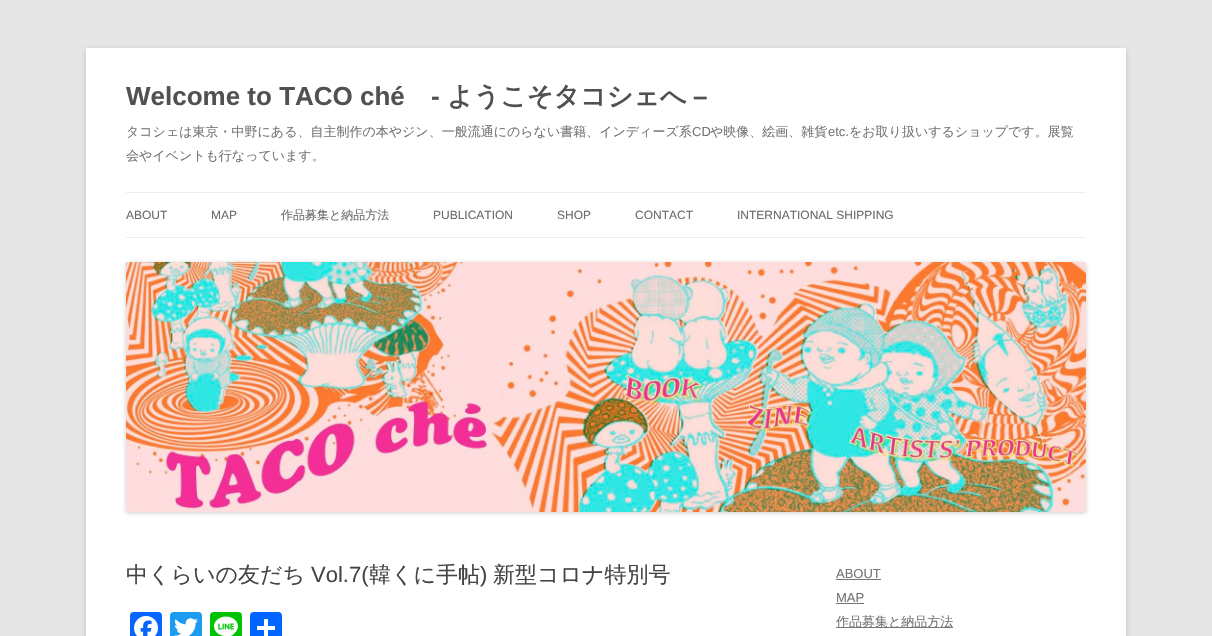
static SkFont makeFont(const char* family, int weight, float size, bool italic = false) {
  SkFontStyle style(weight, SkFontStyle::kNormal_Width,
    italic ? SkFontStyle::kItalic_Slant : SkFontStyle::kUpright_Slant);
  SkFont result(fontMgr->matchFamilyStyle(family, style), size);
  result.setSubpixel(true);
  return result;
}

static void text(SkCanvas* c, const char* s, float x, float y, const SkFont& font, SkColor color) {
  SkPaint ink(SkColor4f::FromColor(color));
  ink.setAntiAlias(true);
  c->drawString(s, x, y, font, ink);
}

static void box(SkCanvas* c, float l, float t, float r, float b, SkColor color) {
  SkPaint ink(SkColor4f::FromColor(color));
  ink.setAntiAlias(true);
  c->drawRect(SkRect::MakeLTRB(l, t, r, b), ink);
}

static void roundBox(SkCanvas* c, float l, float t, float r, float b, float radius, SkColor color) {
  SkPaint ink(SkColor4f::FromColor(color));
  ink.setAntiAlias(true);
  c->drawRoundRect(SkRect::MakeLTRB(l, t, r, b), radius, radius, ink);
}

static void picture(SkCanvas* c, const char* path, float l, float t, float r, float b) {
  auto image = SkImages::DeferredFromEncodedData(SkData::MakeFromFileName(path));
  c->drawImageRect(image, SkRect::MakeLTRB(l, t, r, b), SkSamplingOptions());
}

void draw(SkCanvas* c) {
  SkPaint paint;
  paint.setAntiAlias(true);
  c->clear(0xffe6e6e6);
  paint.setColor(0x4d646464);
  paint.setMaskFilter(SkMaskFilter::MakeBlur(kNormal_SkBlurStyle, 3));
  c->drawRect(SkRect::MakeLTRB(86, 50, 1126, 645), paint);
  paint.setMaskFilter(nullptr);
  box(c, 86, 48, 1126, 636, 0xffffffff);
  SkFont face1 = makeFont("Liberation Sans", 700, 26);
  text(c, "Welcome to TACO ché", 126, 105, face1, 0xff515151);
  text(c, "-", 431, 105, face1, 0xff515151);
  SkFont face2 = makeFont("WenQuanYi Zen Hei", 700, 26);
  text(c, "ようこそタコシェへ", 447, 105, face2, 0xff515151);
  text(c, "–", 693, 105, face1, 0xff515151);
  SkFont face3 = makeFont("WenQuanYi Zen Hei", 500, 13);
  text(c, "タコシェは東京・中野にある、自主制作の本やジン、一般流通にのらない書籍、インディーズ系", 126, 136, face3, 0xff757575);
  SkFont face4 = makeFont("Liberation Sans", 400, 13);
  text(c, "CD", 692, 136, face4, 0xff757575);
  text(c, "や映像、絵画、雑貨", 710, 136, face3, 0xff757575);
  text(c, "etc.", 828, 136, face4, 0xff757575);
  text(c, "をお取り扱いするショップです。展覧", 849, 136, face3, 0xff757575);
  text(c, "会やイベントも行なっています。", 126, 160, face3, 0xff757575);
  box(c, 126, 192, 1086, 193, 0xffededed);
  box(c, 126, 237, 1086, 238, 0xffededed);
  SkFont face5 = makeFont("Liberation Sans", 400, 12);
  text(c, "ABOUT", 126, 219, face5, 0xff6a6a6a);
  text(c, "MAP", 211, 219, face5, 0xff6a6a6a);
  SkFont face6 = makeFont("WenQuanYi Zen Hei", 500, 12);
  text(c, "作品募集と納品方法", 281, 219, face6, 0xff6a6a6a);
  text(c, "PUBLICATION", 433, 219, face5, 0xff6a6a6a);
  text(c, "SHOP", 557, 219, face5, 0xff6a6a6a);
  text(c, "CONTACT", 635, 219, face5, 0xff6a6a6a);
  text(c, "INTERNATIONAL SHIPPING", 737, 219, face5, 0xff6a6a6a);
  paint.setColor(0x33000000);
  paint.setMaskFilter(SkMaskFilter::MakeBlur(kNormal_SkBlurStyle, 2));
  c->drawRoundRect(SkRect::MakeLTRB(126, 263, 1086, 513), 3, 3, paint);
  paint.setMaskFilter(nullptr);
  picture(c, "img_01.png", 126, 262, 1086, 512);
  SkFont face7 = makeFont("WenQuanYi Zen Hei", 500, 22);
  text(c, "中くらいの友だち", 126, 582, face7, 0xff444444);
  SkFont face8 = makeFont("Liberation Sans", 400, 22);
  text(c, "Vol.7(", 311, 582, face8, 0xff444444);
  text(c, "韓くに手帖", 369, 582, face7, 0xff444444);
  text(c, ")", 480, 582, face8, 0xff444444);
  text(c, "新型コロナ特別号", 493, 582, face7, 0xff444444);
  roundBox(c, 130, 612, 162, 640, 4, 0xff0866ff);
  picture(c, "img_02.png", 134, 616, 158, 636);
  roundBox(c, 170, 612, 202, 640, 4, 0xff1d9bf0);
  picture(c, "img_03.png", 174, 618, 198, 636);
  roundBox(c, 210, 612, 242, 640, 4, 0xff00c300);
  picture(c, "img_04.png", 214, 616, 238, 636);
  roundBox(c, 250, 612, 282, 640, 4, 0xff0166ff);
  box(c, 264, 619, 268, 636, 0xffffffff);
  box(c, 257, 626, 275, 630, 0xffffffff);
  text(c, "ABOUT", 836, 578, face4, 0xff757575);
  box(c, 836, 579, 881, 580, 0xff757575);
  text(c, "MAP", 836, 602, face4, 0xff757575);
  box(c, 836, 603, 864, 604, 0xff757575);
  box(c, 836, 627, 953, 628, 0xff757575);
  text(c, "作品募集と納品方法", 836, 626, face3, 0xff757575);
}
